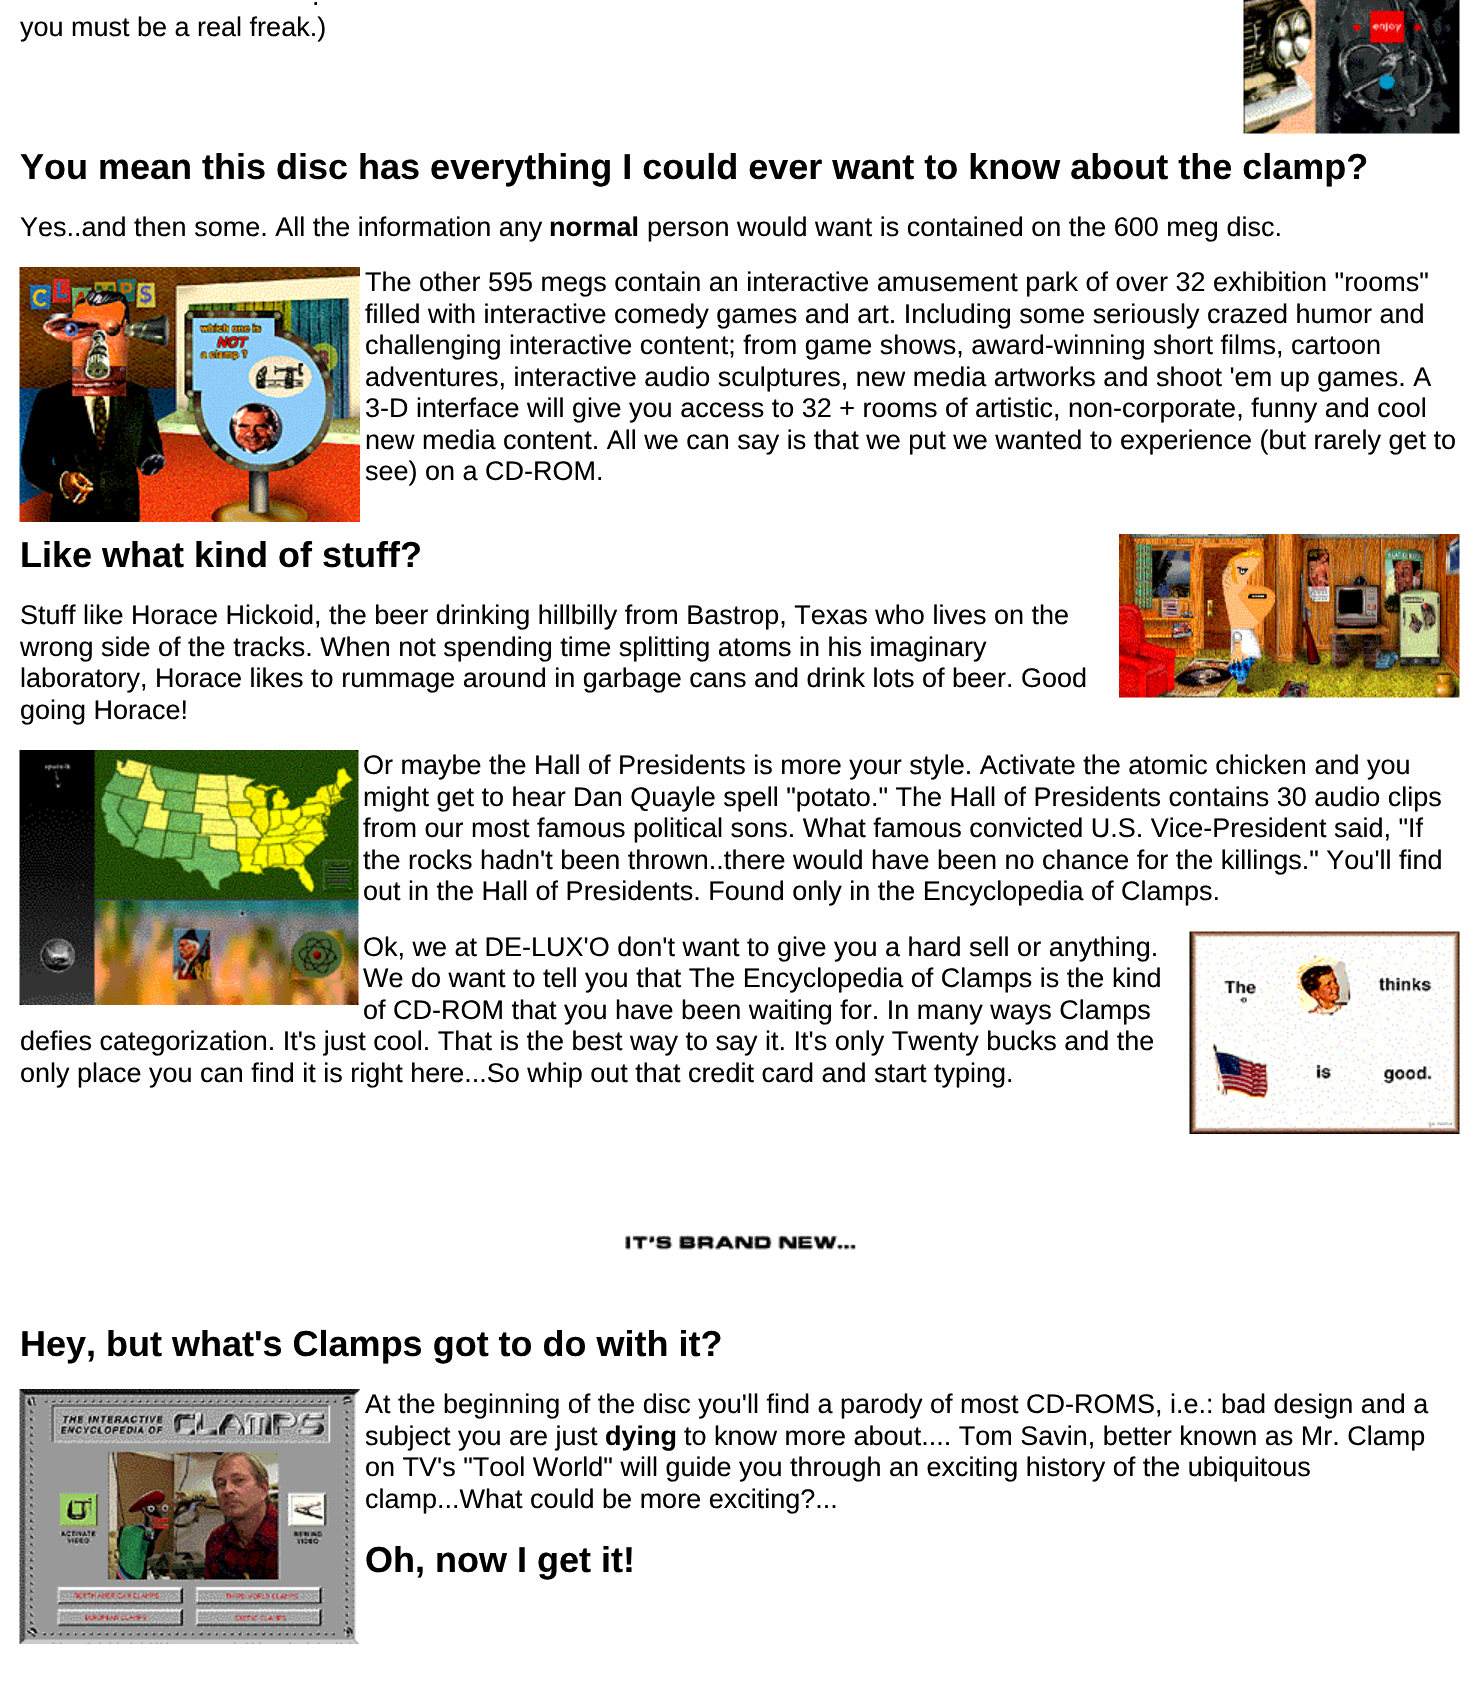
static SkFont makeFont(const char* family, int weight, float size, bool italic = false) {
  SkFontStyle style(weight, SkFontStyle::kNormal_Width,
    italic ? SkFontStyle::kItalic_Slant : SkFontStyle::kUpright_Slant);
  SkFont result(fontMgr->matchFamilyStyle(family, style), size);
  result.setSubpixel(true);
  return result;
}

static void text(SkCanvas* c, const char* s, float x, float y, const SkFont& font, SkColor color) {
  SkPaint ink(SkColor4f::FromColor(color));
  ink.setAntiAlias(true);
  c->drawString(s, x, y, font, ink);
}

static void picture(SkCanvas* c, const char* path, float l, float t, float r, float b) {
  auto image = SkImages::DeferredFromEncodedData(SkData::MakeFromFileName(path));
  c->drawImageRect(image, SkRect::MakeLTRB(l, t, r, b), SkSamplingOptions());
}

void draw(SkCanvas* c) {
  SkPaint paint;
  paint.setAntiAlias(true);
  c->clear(0xffffffff);
  SkFont face1 = makeFont("Liberation Sans", 400, 27);
  text(c, ".", 312, 5, face1, 0xff000000);
  picture(c, "img_01.png", 1243, 0, 1460, 134);
  text(c, "you must be a real freak.)", 20, 36, face1, 0xff000000);
  SkFont face2 = makeFont("Liberation Sans", 700, 36);
  text(c, "You mean this disc has everything I could ever want to know about the clamp?", 20, 179, face2, 0xff000000);
  text(c, "Yes..and then some. All the information any", 20, 236, face1, 0xff000000);
  SkFont face3 = makeFont("Liberation Sans", 700, 27);
  text(c, "normal", 549, 236, face3, 0xff000000);
  text(c, "person would want is contained on the 600 meg disc.", 647, 236, face1, 0xff000000);
  picture(c, "img_02.png", 19, 267, 360, 522);
  text(c, "The other 595 megs contain an interactive amusement park of over 32 exhibition \"rooms\"", 365, 291, face1, 0xff000000);
  text(c, "filled with interactive comedy games and art. Including some seriously crazed humor and", 365, 323, face1, 0xff000000);
  text(c, "challenging interactive content; from game shows, award-winning short films, cartoon", 365, 354, face1, 0xff000000);
  text(c, "adventures, interactive audio sculptures, new media artworks and shoot 'em up games. A", 365, 386, face1, 0xff000000);
  text(c, "3-D interface will give you access to 32 + rooms of artistic, non-corporate, funny and cool", 365, 417, face1, 0xff000000);
  text(c, "new media content. All we can say is that we put we wanted to experience (but rarely get to", 365, 449, face1, 0xff000000);
  text(c, "see) on a CD-ROM.", 365, 480, face1, 0xff000000);
  text(c, "Like what kind of stuff?", 20, 567, face2, 0xff000000);
  picture(c, "img_03.png", 1119, 534, 1460, 698);
  text(c, "Stuff like Horace Hickoid, the beer drinking hillbilly from Bastrop, Texas who lives on the", 20, 624, face1, 0xff000000);
  text(c, "wrong side of the tracks. When not spending time splitting atoms in his imaginary", 20, 656, face1, 0xff000000);
  text(c, "laboratory, Horace likes to rummage around in garbage cans and drink lots of beer. Good", 20, 687, face1, 0xff000000);
  text(c, "going Horace!", 20, 719, face1, 0xff000000);
  picture(c, "img_04.png", 19, 750, 359, 1005);
  text(c, "Or maybe the Hall of Presidents is more your style. Activate the atomic chicken and you", 363, 774, face1, 0xff000000);
  text(c, "might get to hear Dan Quayle spell \"potato.\" The Hall of Presidents contains 30 audio clips", 363, 806, face1, 0xff000000);
  text(c, "from our most famous political sons. What famous convicted U.S. Vice-President said, \"If", 363, 837, face1, 0xff000000);
  text(c, "the rocks hadn't been thrown..there would have been no chance for the killings.\" You'll find", 363, 869, face1, 0xff000000);
  text(c, "out in the Hall of Presidents. Found only in the Encyclopedia of Clamps.", 363, 900, face1, 0xff000000);
  text(c, "Ok, we at DE-LUX'O don't want to give you a hard sell or anything.", 363, 956, face1, 0xff000000);
  picture(c, "img_05.png", 1189, 931, 1460, 1134);
  text(c, "We do want to tell you that The Encyclopedia of Clamps is the kind", 363, 987, face1, 0xff000000);
  text(c, "of CD-ROM that you have been waiting for. In many ways Clamps", 363, 1019, face1, 0xff000000);
  text(c, "defies categorization. It's just cool. That is the best way to say it. It's only Twenty bucks and the", 20, 1050, face1, 0xff000000);
  text(c, "only place you can find it is right here...So whip out that credit card and start typing.", 20, 1082, face1, 0xff000000);
  picture(c, "img_06.png", 625, 1235, 856, 1250);
  text(c, "Hey, but what's Clamps got to do with it?", 20, 1356, face2, 0xff000000);
  picture(c, "img_07.png", 19, 1389, 360, 1644);
  text(c, "At the beginning of the disc you'll find a parody of most CD-ROMS, i.e.: bad design and a", 365, 1413, face1, 0xff000000);
  text(c, "subject you are just", 365, 1445, face1, 0xff000000);
  text(c, "dying", 605, 1445, face3, 0xff000000);
  text(c, "to know more about.... Tom Savin, better known as Mr. Clamp", 684, 1445, face1, 0xff000000);
  text(c, "on TV's \"Tool World\" will guide you through an exciting history of the ubiquitous", 365, 1476, face1, 0xff000000);
  text(c, "clamp...What could be more exciting?...", 365, 1508, face1, 0xff000000);
  text(c, "Oh, now I get it!", 365, 1572, face2, 0xff000000);
}
